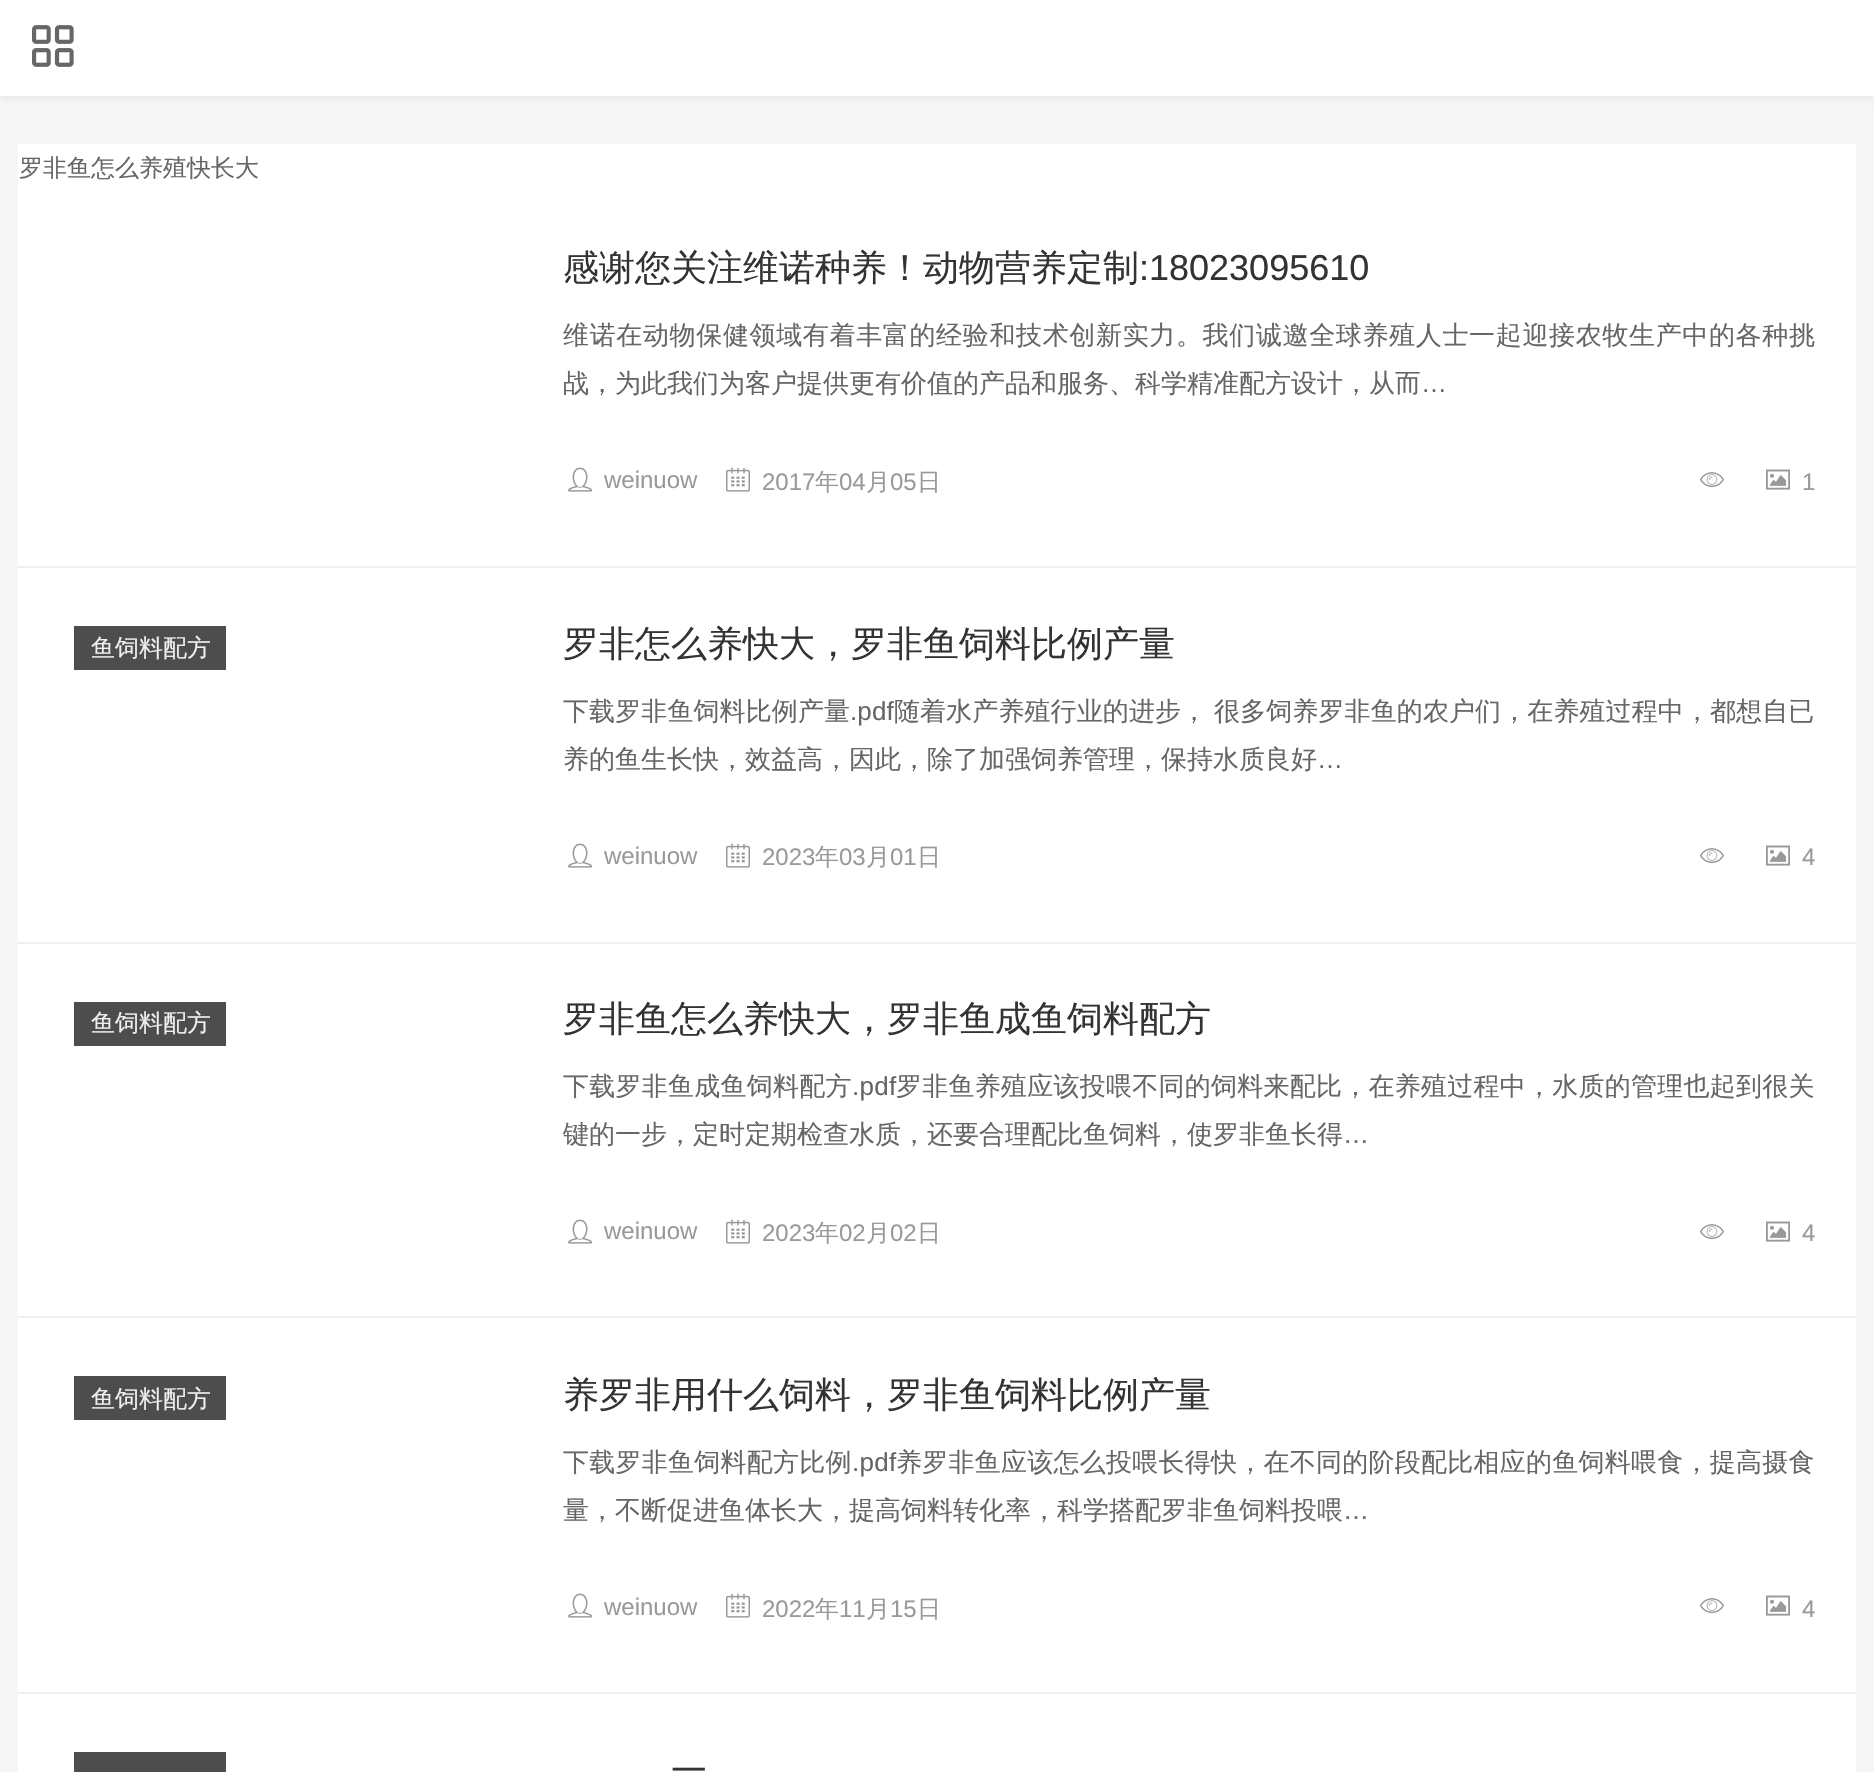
static SkFont makeFont(const char* family, int weight, float size, bool italic = false) {
  SkFontStyle style(weight, SkFontStyle::kNormal_Width,
    italic ? SkFontStyle::kItalic_Slant : SkFontStyle::kUpright_Slant);
  SkFont result(fontMgr->matchFamilyStyle(family, style), size);
  result.setSubpixel(true);
  return result;
}

static void text(SkCanvas* c, const char* s, float x, float y, const SkFont& font, SkColor color) {
  SkPaint ink(SkColor4f::FromColor(color));
  ink.setAntiAlias(true);
  c->drawString(s, x, y, font, ink);
}

static void spacedText(SkCanvas* c, const char* s, float x, float y, const SkFont& font, const SkPaint& ink, float letter, float word) {
  std::vector<SkGlyphID> glyphs(font.countText(s, strlen(s), SkTextEncoding::kUTF8));
  std::vector<float> xs(glyphs.size());
  font.textToGlyphs(s, strlen(s), SkTextEncoding::kUTF8, glyphs);
  font.getXPos(glyphs, xs, x);
  float extra = 0;
  for (size_t i = 0; i < glyphs.size(); i++) {
    xs[i] += extra;
    extra += letter + word * (glyphs[i] == font.unicharToGlyph(' '));
  }
  c->drawTextBlob(SkTextBlob::MakeFromPosHGlyphs(glyphs, xs, y, font), 0, 0, ink);
}

static void box(SkCanvas* c, float l, float t, float r, float b, SkColor color) {
  SkPaint ink(SkColor4f::FromColor(color));
  ink.setAntiAlias(true);
  c->drawRect(SkRect::MakeLTRB(l, t, r, b), ink);
}

static void picture(SkCanvas* c, const char* path, float l, float t, float r, float b) {
  auto image = SkImages::DeferredFromEncodedData(SkData::MakeFromFileName(path));
  c->drawImageRect(image, SkRect::MakeLTRB(l, t, r, b), SkSamplingOptions());
}

void draw(SkCanvas* c) {
  SkPaint paint;
  paint.setAntiAlias(true);
  c->clear(0xfff6f6f6);
  paint.setColor(0x1a000000);
  paint.setMaskFilter(SkMaskFilter::MakeBlur(kNormal_SkBlurStyle, 4));
  c->drawRect(SkRect::MakeLTRB(0, 0, 1874, 96), paint);
  paint.setMaskFilter(nullptr);
  box(c, 0, 0, 1874, 96, 0xffffffff);
  picture(c, "img_01.png", 32, 25, 74, 67);
  box(c, 18, 144, 1856, 1772, 0xffffffff);
  SkFont face1 = makeFont("WenQuanYi Zen Hei", 500, 24);
  text(c, "罗非鱼怎么养殖快长大", 19, 176, face1, 0xff666666);
  box(c, 18, 566, 1856, 568, 0xffefefef);
  SkFont face2 = makeFont("WenQuanYi Zen Hei", 500, 36);
  text(c, "感谢您关注维诺种养！动物营养定制", 563, 280, face2, 0xff333333);
  SkFont face3 = makeFont("Liberation Sans", 400, 36);
  text(c, ":18023095610", 1139, 280, face3, 0xff333333);
  SkFont face4 = makeFont("WenQuanYi Zen Hei", 500, 26);
  paint.setColor(0xff666666);
  spacedText(c, "维诺在动物保健领域有着丰富的经验和技术创新实力。我们诚邀全球养殖人士一起迎接农牧生产中的各种挑", 563, 344, face4, paint, 0.65f, 0);
  text(c, "战，为此我们为客户提供更有价值的产品和服务、科学精准配方设计，从而", 563, 392, face4, 0xff666666);
  SkFont face5 = makeFont("Liberation Sans", 400, 26);
  text(c, "…", 1421, 392, face5, 0xff666666);
  picture(c, "img_02.png", 568, 467, 592, 492);
  SkFont face6 = makeFont("Liberation Sans", 400, 24);
  text(c, "weinuow", 604, 488, face6, 0xff999999);
  picture(c, "img_03.png", 726, 467, 750, 492);
  text(c, "2017", 762, 490, face6, 0xff999999);
  text(c, "年", 815, 490, face1, 0xff999999);
  text(c, "04", 839, 490, face6, 0xff999999);
  text(c, "月", 866, 490, face1, 0xff999999);
  text(c, "05", 890, 490, face6, 0xff999999);
  text(c, "日", 917, 490, face1, 0xff999999);
  picture(c, "img_04.png", 1700, 472, 1724, 488);
  picture(c, "img_05.png", 1766, 469, 1790, 490);
  text(c, "1", 1802, 490, face6, 0xff999999);
  box(c, 18, 942, 1856, 944, 0xffefefef);
  box(c, 74, 626, 226, 670, 0xff4d4d4d);
  text(c, "鱼饲料配方", 91, 656, face1, 0xffefefef);
  text(c, "罗非怎么养快大，罗非鱼饲料比例产量", 563, 656, face2, 0xff333333);
  spacedText(c, "下载罗非鱼饲料比例产量", 563, 720, face4, paint, 0.1f, 0);
  spacedText(c, ".pdf", 850, 720, face5, paint, 0.1f, 0);
  spacedText(c, "随着水产养殖行业的进步， 很多饲养罗非鱼的农户们，在养殖过程中，都想自已", 894, 720, face4, paint, 0.1f, -1);
  text(c, "养的鱼生长快，效益高，因此，除了加强饲养管理，保持水质良好", 563, 768, face4, 0xff666666);
  text(c, "…", 1317, 768, face5, 0xff666666);
  picture(c, "img_02.png", 568, 843, 592, 868);
  text(c, "weinuow", 604, 864, face6, 0xff999999);
  picture(c, "img_03.png", 726, 843, 750, 868);
  text(c, "2023", 762, 865, face6, 0xff999999);
  text(c, "年", 815, 865, face1, 0xff999999);
  text(c, "03", 839, 865, face6, 0xff999999);
  text(c, "月", 866, 865, face1, 0xff999999);
  text(c, "01", 890, 865, face6, 0xff999999);
  text(c, "日", 917, 865, face1, 0xff999999);
  picture(c, "img_04.png", 1700, 848, 1724, 864);
  picture(c, "img_05.png", 1766, 845, 1790, 866);
  text(c, "4", 1802, 865, face6, 0xff999999);
  box(c, 18, 1316, 1856, 1318, 0xffefefef);
  box(c, 74, 1002, 226, 1046, 0xff4d4d4d);
  text(c, "鱼饲料配方", 91, 1031, face1, 0xffefefef);
  text(c, "罗非鱼怎么养快大，罗非鱼成鱼饲料配方", 563, 1031, face2, 0xff333333);
  spacedText(c, "下载罗非鱼成鱼饲料配方", 563, 1095, face4, paint, 0.25f, 0);
  spacedText(c, ".pdf", 852, 1095, face5, paint, 0.25f, 0);
  spacedText(c, "罗非鱼养殖应该投喂不同的饲料来配比，在养殖过程中，水质的管理也起到很关", 896, 1095, face4, paint, 0.25f, 0);
  text(c, "键的一步，定时定期检查水质，还要合理配比鱼饲料，使罗非鱼长得", 563, 1143, face4, 0xff666666);
  text(c, "…", 1343, 1143, face5, 0xff666666);
  picture(c, "img_02.png", 568, 1219, 592, 1244);
  text(c, "weinuow", 604, 1239, face6, 0xff999999);
  picture(c, "img_03.png", 726, 1219, 750, 1244);
  text(c, "2023", 762, 1241, face6, 0xff999999);
  text(c, "年", 815, 1241, face1, 0xff999999);
  text(c, "02", 839, 1241, face6, 0xff999999);
  text(c, "月", 866, 1241, face1, 0xff999999);
  text(c, "02", 890, 1241, face6, 0xff999999);
  text(c, "日", 917, 1241, face1, 0xff999999);
  picture(c, "img_04.png", 1700, 1224, 1724, 1240);
  picture(c, "img_05.png", 1766, 1221, 1790, 1242);
  text(c, "4", 1802, 1241, face6, 0xff999999);
  box(c, 18, 1692, 1856, 1694, 0xffefefef);
  box(c, 74, 1376, 226, 1420, 0xff4d4d4d);
  text(c, "鱼饲料配方", 91, 1407, face1, 0xffefefef);
  text(c, "养罗非用什么饲料，罗非鱼饲料比例产量", 563, 1407, face2, 0xff333333);
  spacedText(c, "下载罗非鱼饲料配方比例", 563, 1471, face4, paint, 0.25f, 0);
  spacedText(c, ".pdf", 852, 1471, face5, paint, 0.25f, 0);
  spacedText(c, "养罗非鱼应该怎么投喂长得快，在不同的阶段配比相应的鱼饲料喂食，提高摄食", 896, 1471, face4, paint, 0.25f, 0);
  text(c, "量，不断促进鱼体长大，提高饲料转化率，科学搭配罗非鱼饲料投喂", 563, 1519, face4, 0xff666666);
  text(c, "…", 1343, 1519, face5, 0xff666666);
  picture(c, "img_02.png", 568, 1593, 592, 1618);
  text(c, "weinuow", 604, 1615, face6, 0xff999999);
  picture(c, "img_03.png", 726, 1593, 750, 1618);
  text(c, "2022", 762, 1617, face6, 0xff999999);
  text(c, "年", 815, 1617, face1, 0xff999999);
  text(c, "11", 839, 1617, face6, 0xff999999);
  text(c, "月", 866, 1617, face1, 0xff999999);
  text(c, "15", 890, 1617, face6, 0xff999999);
  text(c, "日", 917, 1617, face1, 0xff999999);
  picture(c, "img_04.png", 1700, 1598, 1724, 1614);
  picture(c, "img_05.png", 1766, 1595, 1790, 1616);
  text(c, "4", 1802, 1617, face6, 0xff999999);
  box(c, 74, 1752, 226, 1772, 0xff4d4d4d);
  text(c, "一", 671, 1783, face2, 0xff333333);
}
